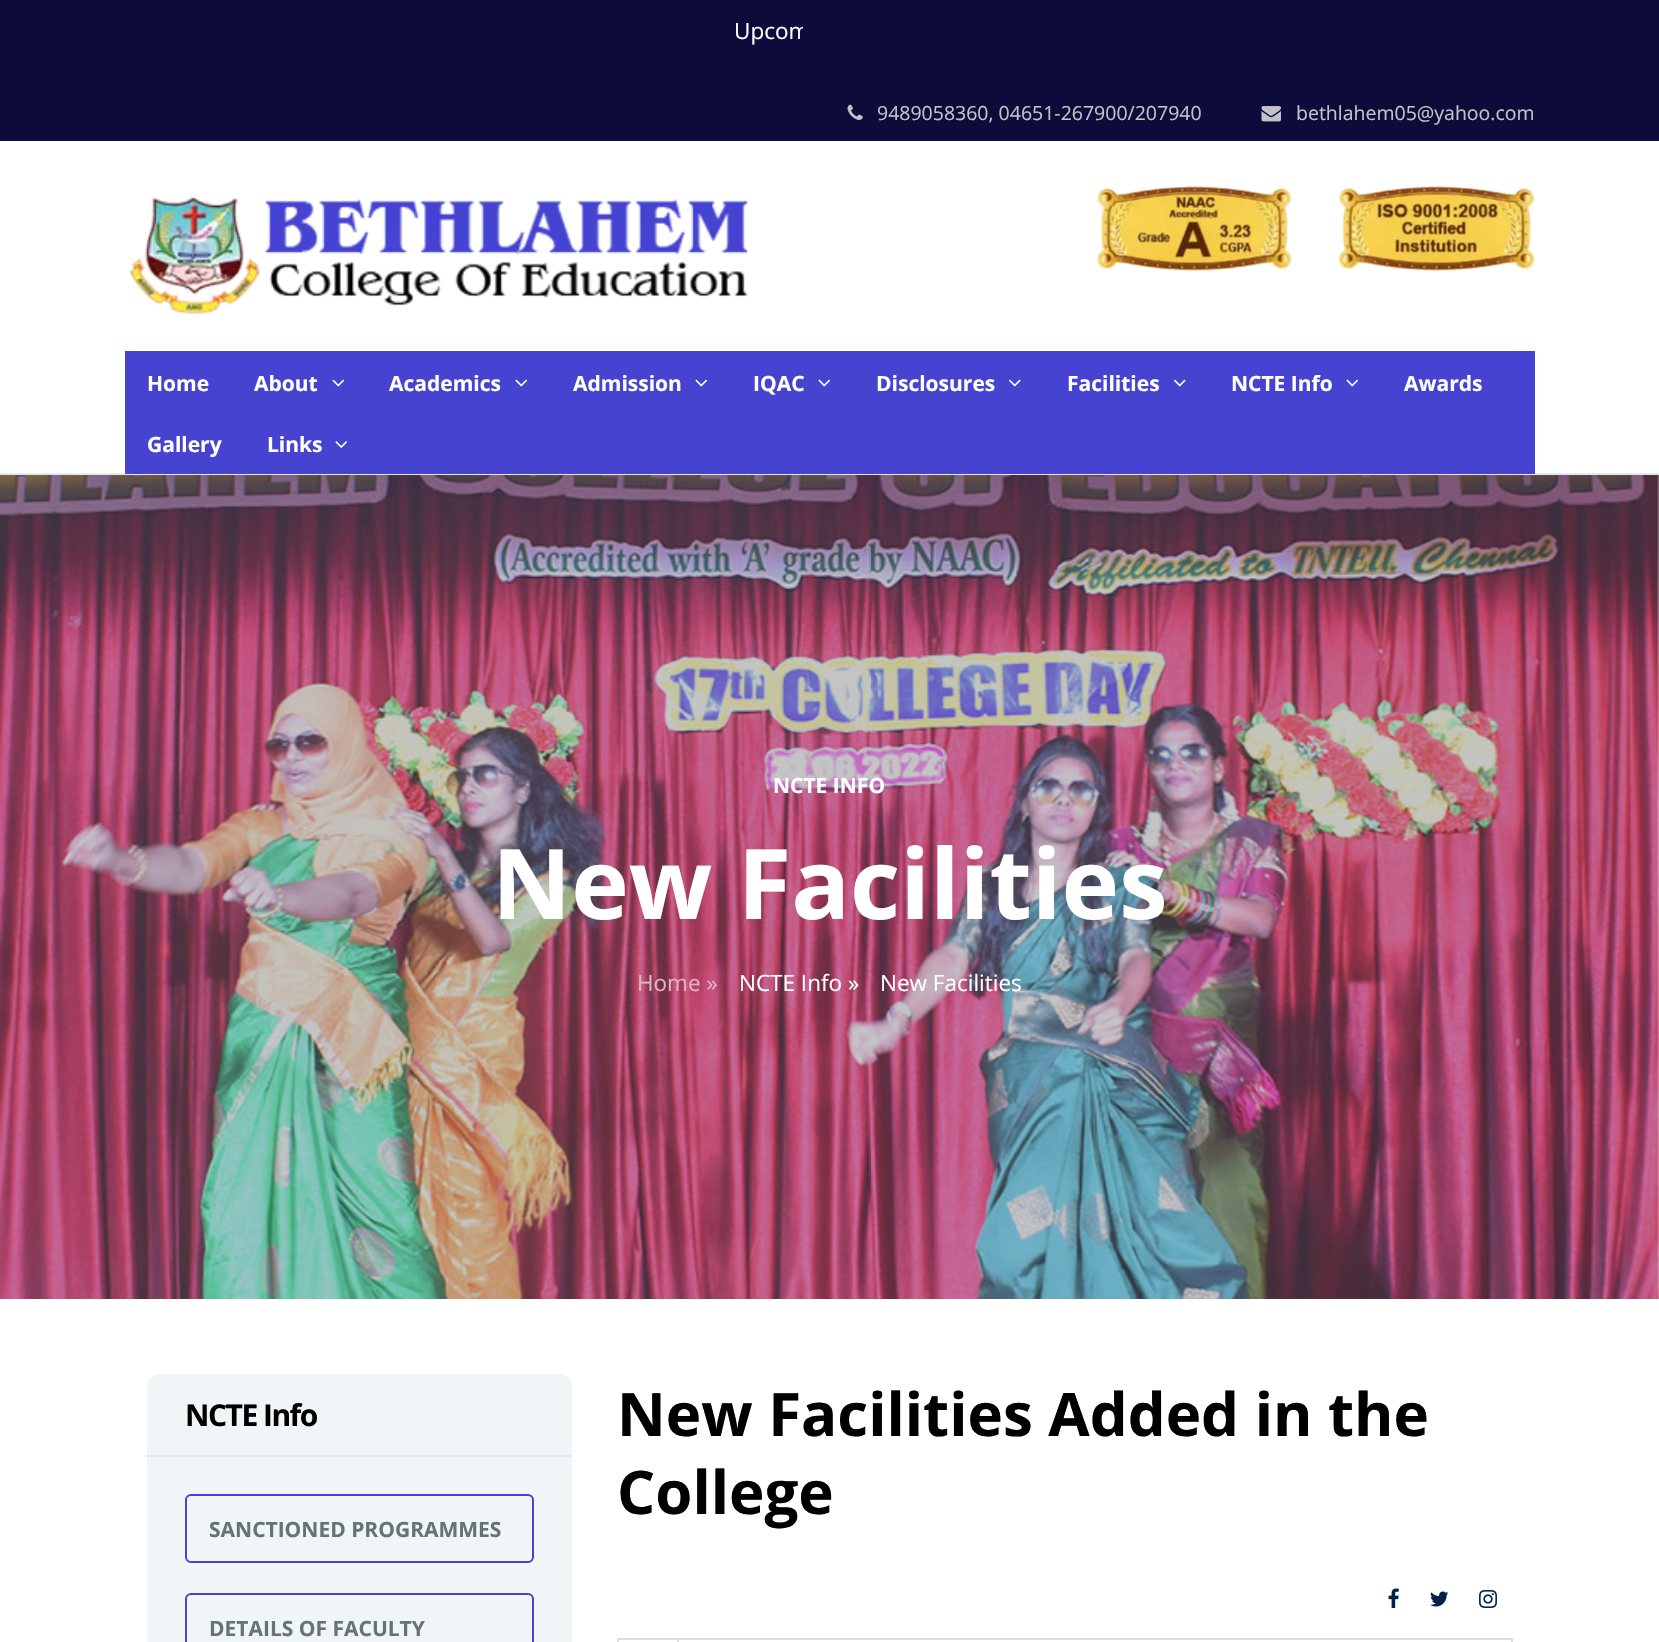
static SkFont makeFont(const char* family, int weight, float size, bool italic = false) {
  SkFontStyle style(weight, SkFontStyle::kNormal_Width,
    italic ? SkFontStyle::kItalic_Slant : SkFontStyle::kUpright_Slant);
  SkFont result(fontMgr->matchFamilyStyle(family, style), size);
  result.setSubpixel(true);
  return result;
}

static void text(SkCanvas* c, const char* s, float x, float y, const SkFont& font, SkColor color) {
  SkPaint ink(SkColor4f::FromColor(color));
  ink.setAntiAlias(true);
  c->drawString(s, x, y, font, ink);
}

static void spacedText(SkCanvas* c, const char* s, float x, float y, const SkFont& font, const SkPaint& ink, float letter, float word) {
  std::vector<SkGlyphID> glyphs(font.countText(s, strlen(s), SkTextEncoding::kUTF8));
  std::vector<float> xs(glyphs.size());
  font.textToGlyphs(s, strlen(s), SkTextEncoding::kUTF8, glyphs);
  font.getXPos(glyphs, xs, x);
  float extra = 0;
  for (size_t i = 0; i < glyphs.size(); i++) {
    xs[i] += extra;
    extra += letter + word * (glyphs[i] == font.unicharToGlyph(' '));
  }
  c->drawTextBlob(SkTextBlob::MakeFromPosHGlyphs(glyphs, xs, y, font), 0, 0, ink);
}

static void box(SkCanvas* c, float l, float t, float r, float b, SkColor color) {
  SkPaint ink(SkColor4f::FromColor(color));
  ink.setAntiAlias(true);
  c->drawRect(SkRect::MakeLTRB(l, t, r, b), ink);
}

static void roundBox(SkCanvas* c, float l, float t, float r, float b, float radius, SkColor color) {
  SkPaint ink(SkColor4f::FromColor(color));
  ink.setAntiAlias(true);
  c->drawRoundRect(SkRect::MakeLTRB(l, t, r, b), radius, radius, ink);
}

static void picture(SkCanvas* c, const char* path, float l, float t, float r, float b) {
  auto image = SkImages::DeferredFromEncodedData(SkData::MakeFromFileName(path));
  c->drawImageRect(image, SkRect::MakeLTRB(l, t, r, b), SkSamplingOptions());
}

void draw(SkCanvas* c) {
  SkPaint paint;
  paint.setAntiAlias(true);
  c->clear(0xffffffff);
  box(c, 0, 0, 1659, 141, 0xff0c0b39);
  c->save();
  c->clipRect(SkRect::MakeLTRB(125, 0, 803, 60));
  SkFont face1 = makeFont("Open Sans", 400, 22.5f);
  text(c, "Upcom", 734, 39, face1, 0xffffffff);
  c->restore();
  picture(c, "img_01.png", 847, 104, 863, 120);
  SkFont face2 = makeFont("Open Sans", 400, 19.5f);
  text(c, "9489058360, 04651-267900/207940", 877, 120, face2, 0xffc3c3c7);
  picture(c, "img_02.png", 1261, 106, 1281, 122);
  text(c, "bethlahem05@yahoo.com", 1296, 120, face2, 0xffc3c3c7);
  picture(c, "img_09.png", 0, 475, 1659, 1299);
  c->save();
  c->clipRect(SkRect::MakeLTRB(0, 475, 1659, 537));
  paint.setColor(0x57121158);
  paint.setMaskFilter(SkMaskFilter::MakeBlur(kNormal_SkBlurStyle, 52));
  c->drawRect(SkRect::MakeLTRB(50, 222, 1610, 456), paint);
  paint.setMaskFilter(nullptr);
  c->restore();
  box(c, 0, 473, 1659, 475, 0xffe3eaed);
  picture(c, "img_03.png", 130, 197, 748, 314);
  picture(c, "img_04.png", 1096, 186, 1292, 272);
  picture(c, "img_05.png", 1338, 186, 1535, 272);
  box(c, 125, 351, 1535, 474, 0xff4543d0);
  SkFont face3 = makeFont("Open Sans", 700, 21);
  text(c, "Home", 147, 391, face3, 0xffffffff);
  text(c, "About", 254, 391, face3, 0xffffffff);
  picture(c, "img_06.png", 332, 379, 345, 387);
  text(c, "Academics", 389, 391, face3, 0xffffffff);
  picture(c, "img_06.png", 515, 379, 528, 387);
  text(c, "Admission", 573, 391, face3, 0xffffffff);
  picture(c, "img_06.png", 695, 379, 708, 387);
  text(c, "IQAC", 753, 391, face3, 0xffffffff);
  picture(c, "img_06.png", 818, 379, 831, 387);
  text(c, "Disclosures", 876, 391, face3, 0xffffffff);
  picture(c, "img_07.png", 1008, 379, 1021, 387);
  text(c, "Facilities", 1067, 391, face3, 0xffffffff);
  picture(c, "img_07.png", 1173, 379, 1186, 387);
  text(c, "NCTE Info", 1231, 391, face3, 0xffffffff);
  picture(c, "img_06.png", 1346, 379, 1359, 387);
  text(c, "Awards", 1404, 391, face3, 0xffffffff);
  text(c, "Gallery", 147, 452, face3, 0xffffffff);
  text(c, "Links", 267, 452, face3, 0xffffffff);
  picture(c, "img_08.png", 335, 441, 347, 448);
  text(c, "NCTE INFO", 773, 793, face3, 0xffffffff);
  SkFont face4 = makeFont("Open Sans", 700, 97.5f);
  text(c, "New Facilities", 492, 919, face4, 0xffffffff);
  text(c, "Home »", 637, 991, face1, 0xffddb5c2);
  text(c, "NCTE Info »", 739, 991, face1, 0xffffffff);
  text(c, "New Facilities", 880, 991, face1, 0xffffffff);
  roundBox(c, 147, 1374, 572, 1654, 12, 0xfff0f6f7);
  box(c, 147, 1455, 572, 1457, 0xffdee7ed);
  SkFont face5 = makeFont("Open Sans", 700, 30);
  paint.setColor(0xff000000);
  spacedText(c, "NCTE Info", 185, 1426, face5, paint, -1.5f, 0);
  paint.setStyle(SkPaint::kStroke_Style);
  paint.setStrokeWidth(2);
  paint.setColor(0xff4543d0);
  c->drawRoundRect(SkRect::MakeLTRB(186, 1495, 533, 1562), 5, 5, paint);
  text(c, "SANCTIONED PROGRAMMES", 209, 1537, face3, 0xff637376);
  c->drawRoundRect(SkRect::MakeLTRB(186, 1594, 533, 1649), 5, 5, paint);
  text(c, "DETAILS OF FACULTY", 209, 1636, face3, 0xff637376);
  SkFont face6 = makeFont("Open Sans", 700, 60);
  text(c, "New Facilities Added in the", 617, 1436, face6, 0xff000000);
  text(c, "College", 617, 1514, face6, 0xff000000);
  picture(c, "img_10.png", 1388, 1588, 1399, 1608);
  picture(c, "img_11.png", 1430, 1591, 1449, 1607);
  picture(c, "img_12.png", 1479, 1590, 1497, 1608);
  box(c, 677, 1638, 1512, 1640, 0xffdddddd);
  box(c, 677, 1638, 679, 1642, 0xffdddddd);
  box(c, 617, 1638, 678, 1640, 0xffdddddd);
  box(c, 617, 1638, 619, 1642, 0xffdddddd);
  box(c, 1511, 1638, 1513, 1642, 0xffdddddd);
}
